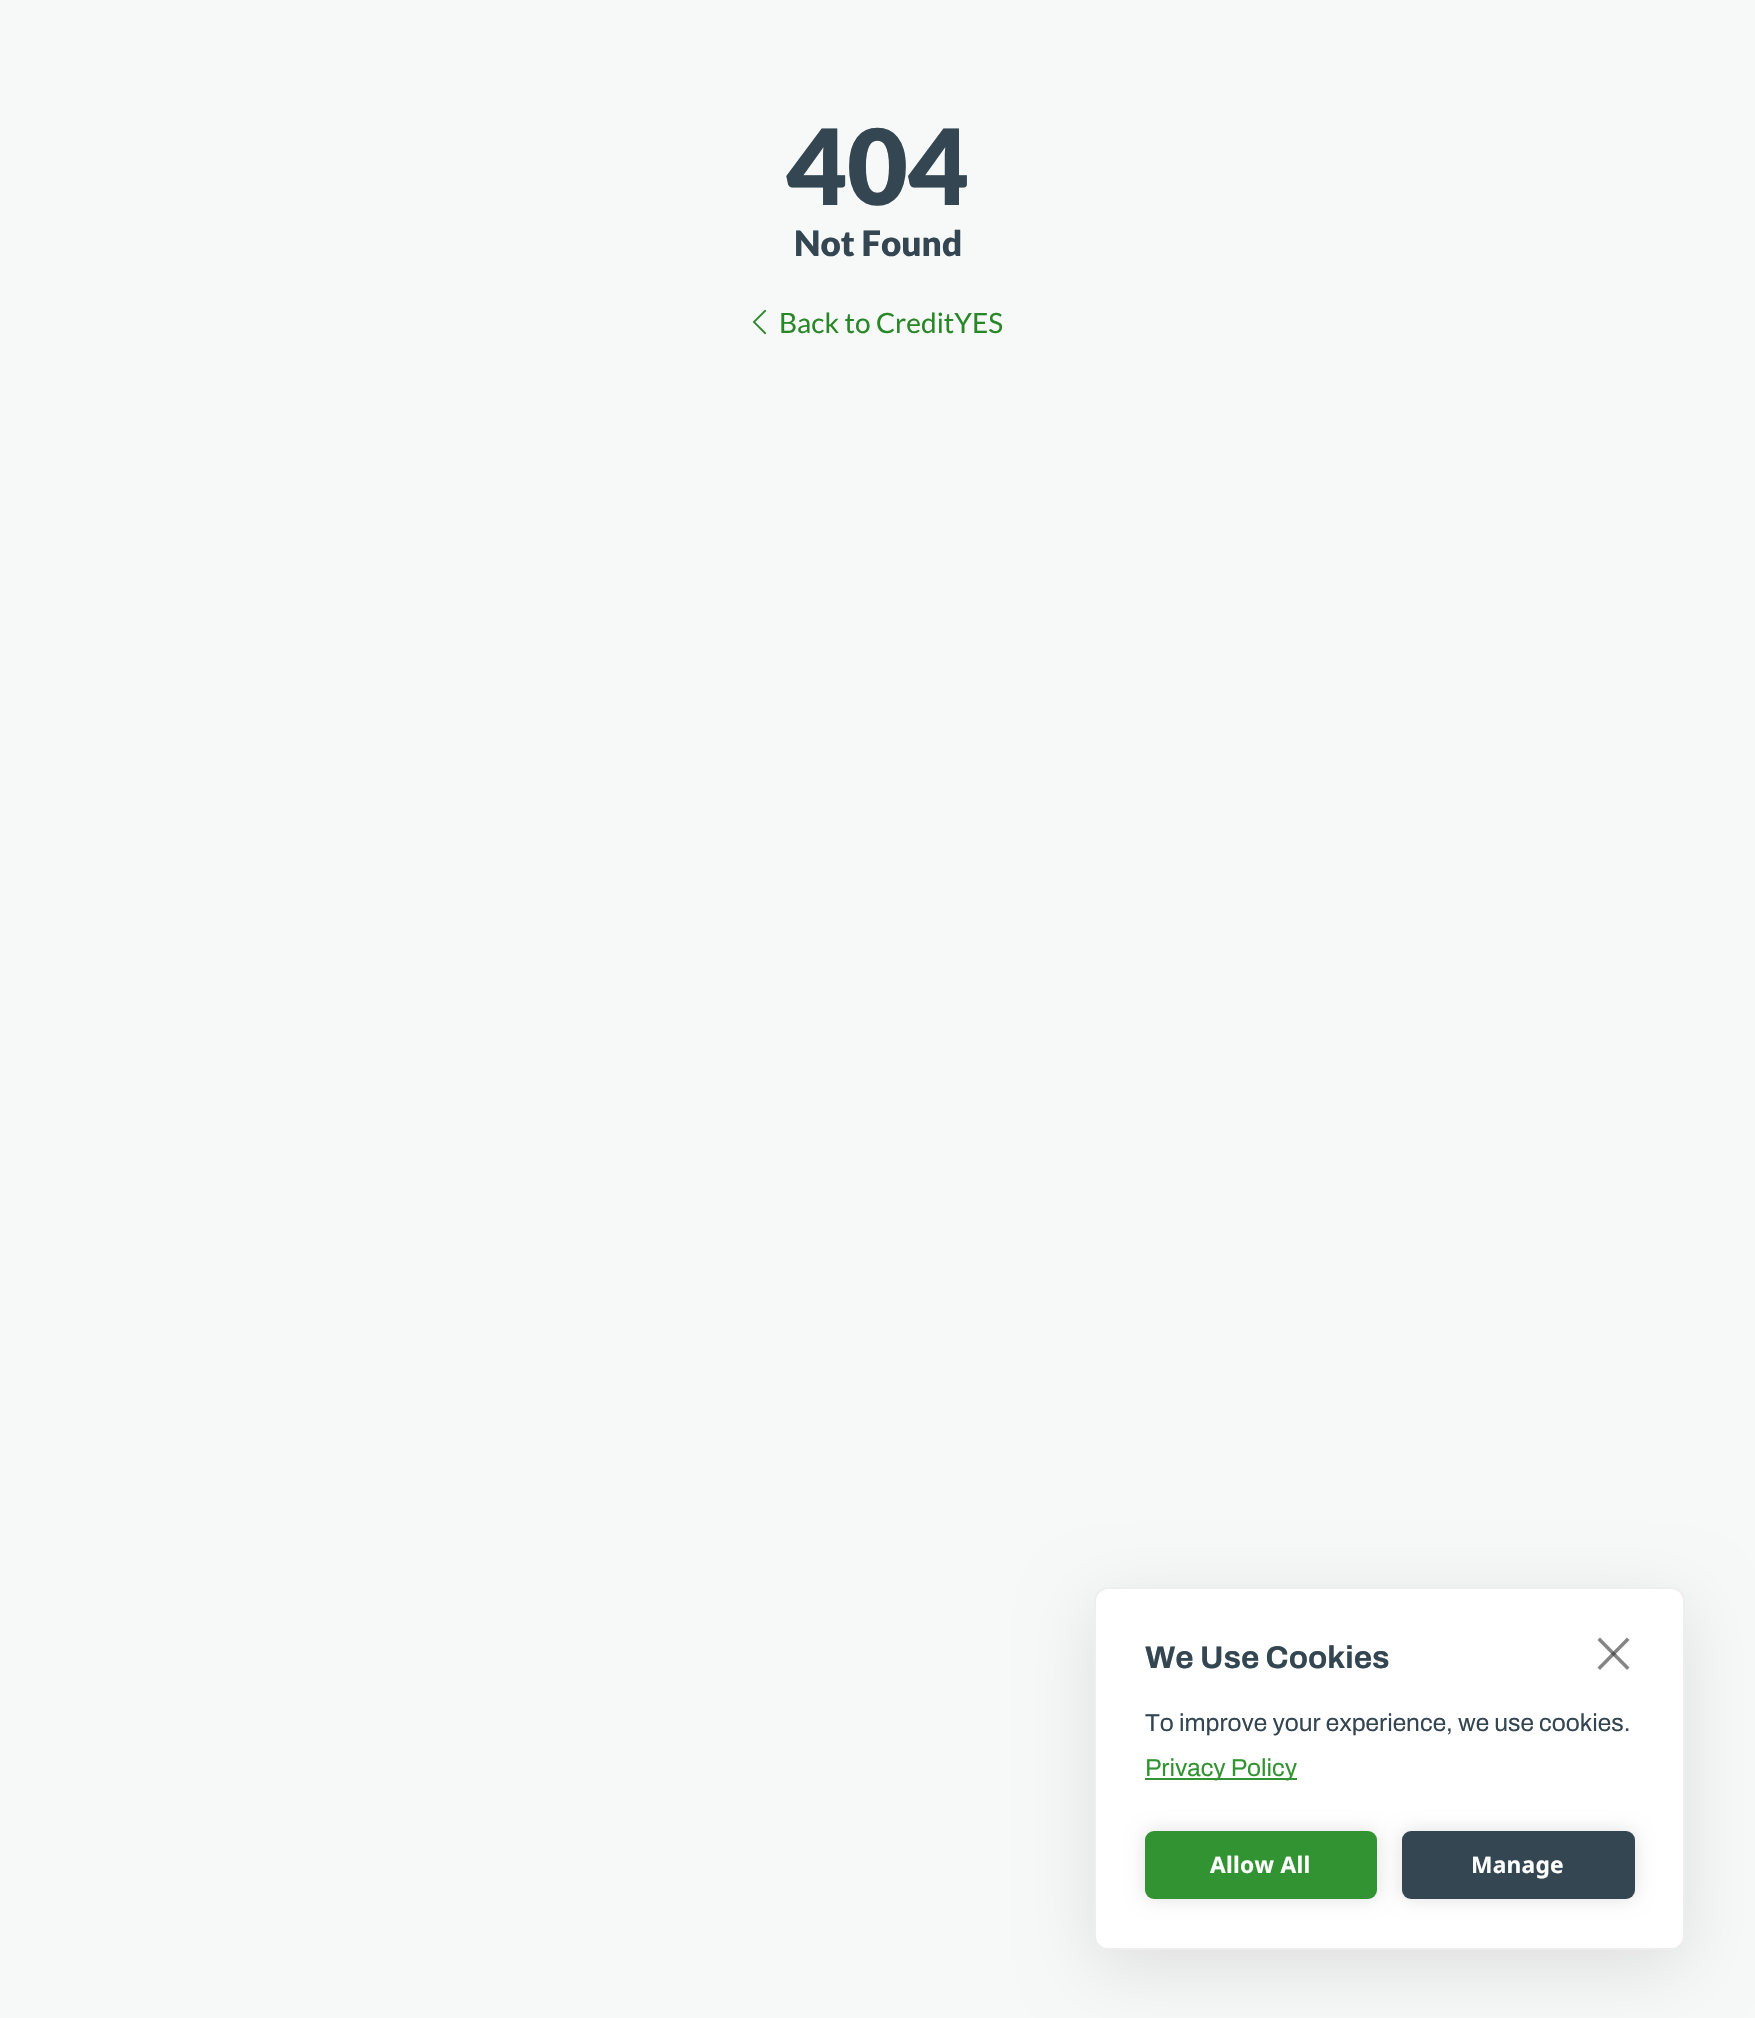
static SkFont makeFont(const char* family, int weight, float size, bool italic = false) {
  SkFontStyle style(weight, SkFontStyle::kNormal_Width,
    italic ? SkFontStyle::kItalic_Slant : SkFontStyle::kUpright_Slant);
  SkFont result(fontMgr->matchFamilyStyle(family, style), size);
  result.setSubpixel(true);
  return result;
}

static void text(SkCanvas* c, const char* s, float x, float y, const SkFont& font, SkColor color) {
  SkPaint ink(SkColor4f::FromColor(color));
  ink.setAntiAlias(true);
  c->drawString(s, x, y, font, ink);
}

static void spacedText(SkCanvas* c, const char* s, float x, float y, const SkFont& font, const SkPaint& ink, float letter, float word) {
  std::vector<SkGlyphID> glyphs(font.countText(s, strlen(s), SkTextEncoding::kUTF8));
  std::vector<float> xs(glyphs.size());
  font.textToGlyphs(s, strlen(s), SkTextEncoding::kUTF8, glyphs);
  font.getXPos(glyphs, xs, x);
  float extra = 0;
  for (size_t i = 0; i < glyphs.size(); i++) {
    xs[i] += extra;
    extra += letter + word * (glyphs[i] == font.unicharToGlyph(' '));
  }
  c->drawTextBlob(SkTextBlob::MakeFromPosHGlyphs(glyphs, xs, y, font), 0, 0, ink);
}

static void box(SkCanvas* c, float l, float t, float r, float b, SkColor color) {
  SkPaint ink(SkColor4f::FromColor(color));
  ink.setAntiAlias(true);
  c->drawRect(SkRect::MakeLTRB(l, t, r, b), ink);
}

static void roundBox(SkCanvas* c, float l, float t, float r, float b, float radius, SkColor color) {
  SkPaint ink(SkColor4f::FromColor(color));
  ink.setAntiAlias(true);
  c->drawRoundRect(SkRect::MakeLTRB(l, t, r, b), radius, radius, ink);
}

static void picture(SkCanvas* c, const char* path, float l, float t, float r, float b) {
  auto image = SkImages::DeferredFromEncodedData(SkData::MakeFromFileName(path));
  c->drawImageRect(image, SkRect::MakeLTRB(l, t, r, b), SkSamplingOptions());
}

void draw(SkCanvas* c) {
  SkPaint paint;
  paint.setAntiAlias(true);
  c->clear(0xfff7f8f8);
  SkFont face1 = makeFont("Lato", 900, 105);
  text(c, "404", 786, 205, face1, 0xff334652);
  SkFont face2 = makeFont("Lato", 900, 35);
  text(c, "Not Found", 794, 256, face2, 0xff334652);
  picture(c, "img_01.png", 752, 309, 767, 335);
  SkFont face3 = makeFont("Lato", 400, 28);
  text(c, "Back to CreditYES", 779, 333, face3, 0xff288828);
  paint.setColor(0x1a000000);
  paint.setMaskFilter(SkMaskFilter::MakeBlur(kNormal_SkBlurStyle, 35));
  c->drawRoundRect(SkRect::MakeLTRB(1094, 1605, 1685, 1967), 14, 14, paint);
  paint.setMaskFilter(nullptr);
  paint.setColor(0xffffffff);
  c->drawRoundRect(SkRect::MakeLTRB(1095, 1588, 1684, 1949), 13, 13, paint);
  paint.setStyle(SkPaint::kStroke_Style);
  paint.setStrokeWidth(2);
  paint.setColor(0xffeeeeee);
  c->drawRoundRect(SkRect::MakeLTRB(1095, 1588, 1684, 1949), 13, 13, paint);
  paint.setStyle(SkPaint::kFill_Style);
  paint.setColor(0xff858585);
  c->drawPath(SkPathBuilder().moveTo(1597.5f, 1667.5f).lineTo(1627, 1637.5f).lineTo(1629.5f, 1640).lineTo(1600, 1670).close().detach(), paint);
  paint.setColor(0x99333333);
  c->drawPath(SkPathBuilder().moveTo(1600, 1637.5f).lineTo(1629.5f, 1667.5f).lineTo(1627, 1670).lineTo(1597.5f, 1640).close().detach(), paint);
  SkFont face4 = makeFont("Archivo", 700, 31.5f);
  text(c, "We Use Cookies", 1145, 1668, face4, 0xff334652);
  SkFont face5 = makeFont("Archivo", 400, 24.5f);
  text(c, "To improve your experience, we use cookies.", 1145, 1731, face5, 0xff334652);
  box(c, 1145, 1778, 1297, 1780, 0xff329332);
  text(c, "Privacy Policy", 1145, 1776, face5, 0xff329332);
  paint.setColor(0x1f000000);
  paint.setMaskFilter(SkMaskFilter::MakeBlur(kNormal_SkBlurStyle, 9));
  c->drawRoundRect(SkRect::MakeLTRB(1145, 1831, 1377, 1899), 9, 9, paint);
  paint.setMaskFilter(nullptr);
  roundBox(c, 1145, 1831, 1377, 1899, 9, 0xff329332);
  SkFont face6 = makeFont("Noto Sans", 700, 22.75f);
  paint.setColor(0xffffffff);
  spacedText(c, "Allow All", 1210, 1873, face6, paint, 0.25f, 0);
  paint.setColor(0x1f000000);
  paint.setMaskFilter(SkMaskFilter::MakeBlur(kNormal_SkBlurStyle, 9));
  c->drawRoundRect(SkRect::MakeLTRB(1402, 1831, 1635, 1899), 9, 9, paint);
  paint.setMaskFilter(nullptr);
  roundBox(c, 1402, 1831, 1635, 1899, 9, 0xff334652);
  paint.setColor(0xffffffff);
  spacedText(c, "Manage", 1471, 1873, face6, paint, 0.25f, 0);
}
